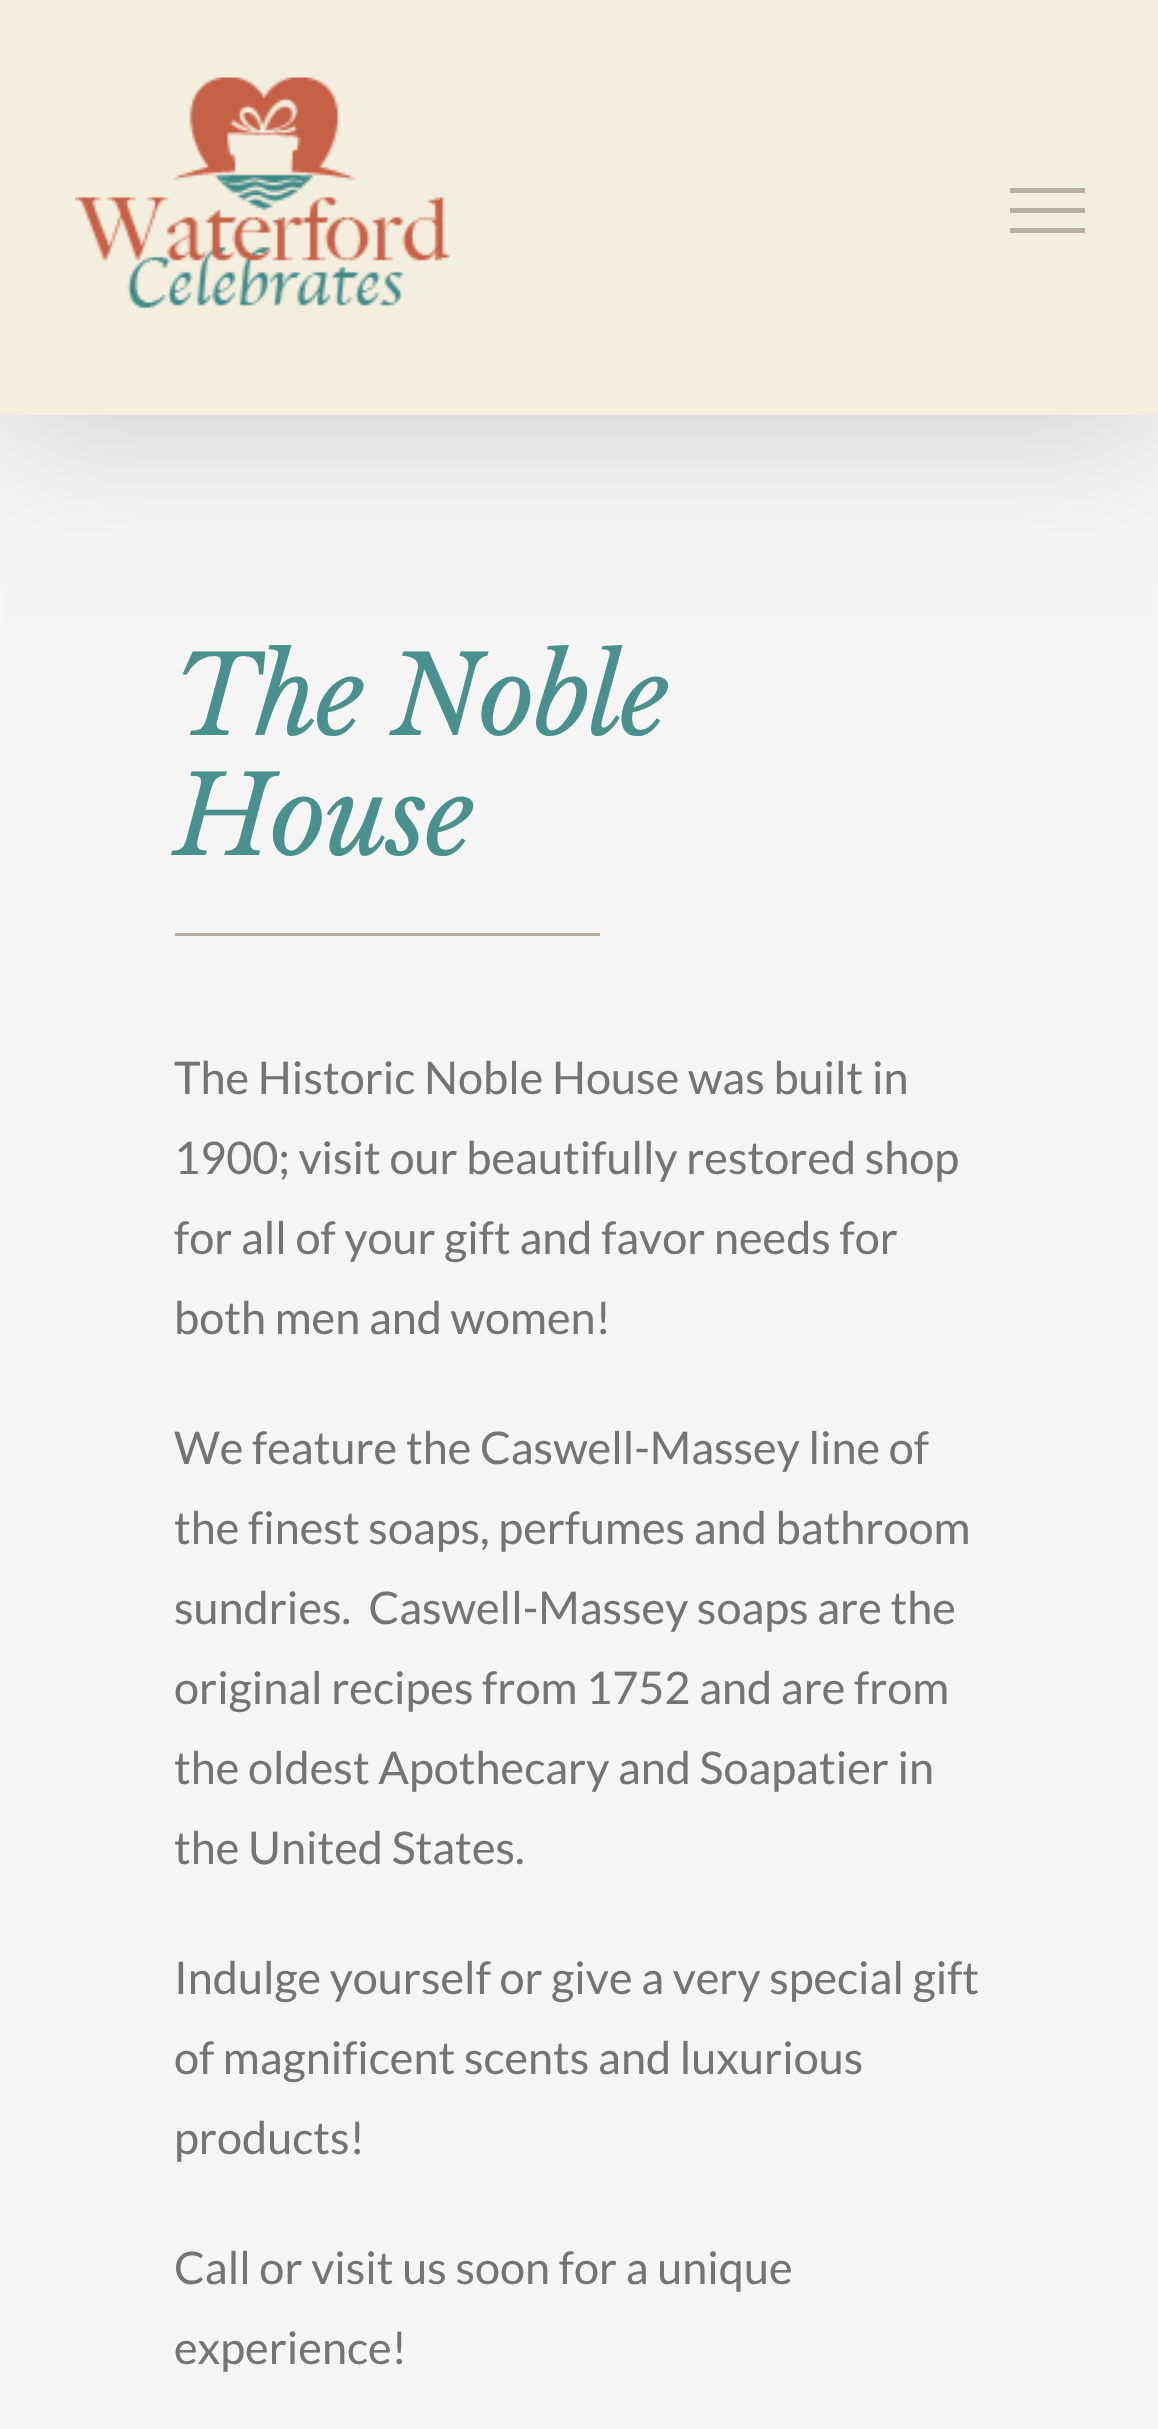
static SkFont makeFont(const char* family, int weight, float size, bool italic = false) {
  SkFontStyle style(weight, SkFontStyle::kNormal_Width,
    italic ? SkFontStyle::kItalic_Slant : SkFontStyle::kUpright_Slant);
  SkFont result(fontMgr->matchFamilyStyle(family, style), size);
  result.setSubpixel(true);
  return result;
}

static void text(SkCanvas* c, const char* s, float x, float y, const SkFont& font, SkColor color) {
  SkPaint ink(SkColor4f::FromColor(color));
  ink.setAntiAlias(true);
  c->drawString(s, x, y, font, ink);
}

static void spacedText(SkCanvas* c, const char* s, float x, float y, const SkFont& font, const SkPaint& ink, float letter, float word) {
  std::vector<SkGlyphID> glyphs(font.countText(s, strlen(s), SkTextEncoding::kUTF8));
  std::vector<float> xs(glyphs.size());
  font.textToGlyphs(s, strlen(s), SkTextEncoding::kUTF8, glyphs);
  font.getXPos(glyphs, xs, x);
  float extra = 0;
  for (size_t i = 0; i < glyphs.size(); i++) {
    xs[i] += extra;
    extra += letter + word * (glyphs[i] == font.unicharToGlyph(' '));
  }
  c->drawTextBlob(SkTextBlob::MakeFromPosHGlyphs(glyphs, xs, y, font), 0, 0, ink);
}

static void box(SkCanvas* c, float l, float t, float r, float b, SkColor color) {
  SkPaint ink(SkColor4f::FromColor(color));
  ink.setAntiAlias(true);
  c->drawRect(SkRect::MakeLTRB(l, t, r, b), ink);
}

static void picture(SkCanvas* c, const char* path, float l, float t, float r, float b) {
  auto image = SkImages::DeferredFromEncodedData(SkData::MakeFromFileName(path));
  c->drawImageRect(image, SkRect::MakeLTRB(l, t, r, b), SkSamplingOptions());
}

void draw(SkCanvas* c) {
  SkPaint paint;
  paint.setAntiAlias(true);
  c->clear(0xfff5f5f5);
  paint.setColor(0x24000000);
  paint.setMaskFilter(SkMaskFilter::MakeBlur(kNormal_SkBlurStyle, 62.5f));
  c->drawRect(SkRect::MakeLTRB(5, 30, 1155, 435), paint);
  paint.setMaskFilter(nullptr);
  box(c, 0, 0, 1158, 415, 0xfff4eede);
  picture(c, "img_01.png", 75, 77, 450, 309);
  box(c, 1010, 188, 1085, 193, 0xffb9afa1);
  box(c, 1010, 208, 1085, 213, 0xffb9afa1);
  box(c, 1010, 228, 1085, 233, 0xffb9afa1);
  SkFont face1 = makeFont("Libre Baskerville", 400, 108.5f, true);
  paint.setColor(0xff4a908e);
  spacedText(c, "The Noble", 174, 735, face1, paint, -2.5f, 0);
  spacedText(c, "House", 174, 855, face1, paint, -2.5f, 0);
  box(c, 175, 933, 600, 936, 0xffb9afa1);
  SkFont face2 = makeFont("Lato", 400, 45);
  text(c, "The Historic Noble House was built in", 174, 1094, face2, 0xff747474);
  text(c, "1900; visit our beautifully restored shop", 174, 1174, face2, 0xff747474);
  text(c, "for all of your gift and favor needs for", 174, 1254, face2, 0xff747474);
  text(c, "both men and women!", 174, 1334, face2, 0xff747474);
  text(c, "We feature the Caswell-Massey line of", 174, 1464, face2, 0xff747474);
  text(c, "the finest soaps, perfumes and bathroom", 174, 1544, face2, 0xff747474);
  text(c, "sundries.  Caswell-Massey soaps are the", 174, 1624, face2, 0xff747474);
  text(c, "original recipes from 1752 and are from", 174, 1704, face2, 0xff747474);
  text(c, "the oldest Apothecary and Soapatier in", 174, 1784, face2, 0xff747474);
  text(c, "the United States.", 174, 1864, face2, 0xff747474);
  text(c, "Indulge yourself or give a very special gift", 174, 1994, face2, 0xff747474);
  text(c, "of magnificent scents and luxurious", 174, 2074, face2, 0xff747474);
  text(c, "products!", 174, 2154, face2, 0xff747474);
  text(c, "Call or visit us soon for a unique", 174, 2284, face2, 0xff747474);
  text(c, "experience!", 174, 2364, face2, 0xff747474);
}
